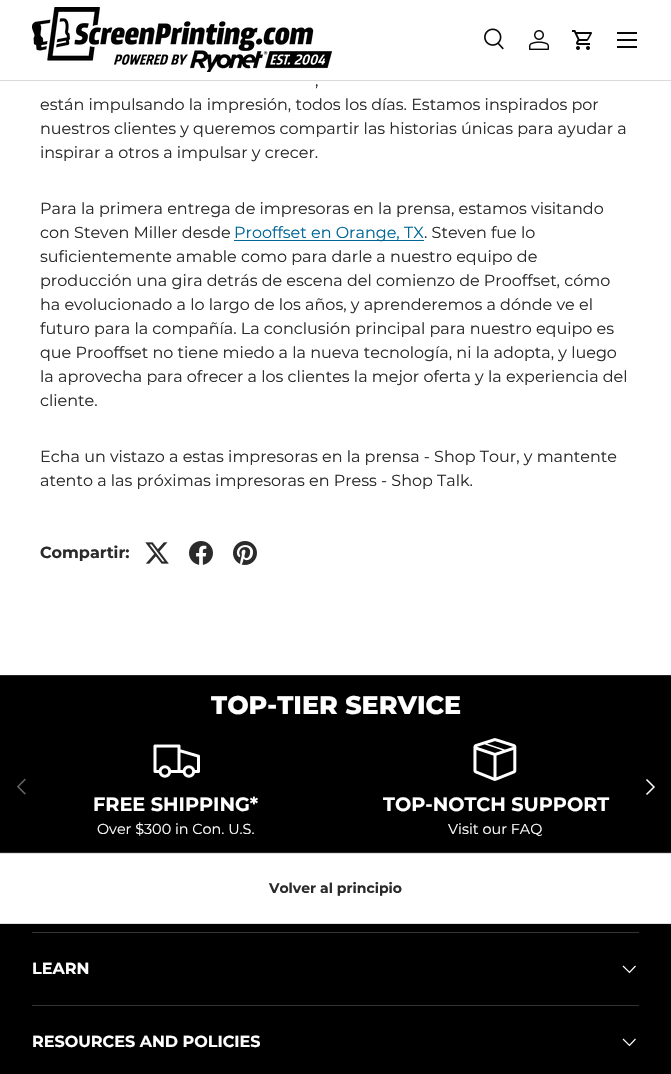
static SkFont makeFont(const char* family, int weight, float size, bool italic = false) {
  SkFontStyle style(weight, SkFontStyle::kNormal_Width,
    italic ? SkFontStyle::kItalic_Slant : SkFontStyle::kUpright_Slant);
  SkFont result(fontMgr->matchFamilyStyle(family, style), size);
  result.setSubpixel(true);
  return result;
}

static void text(SkCanvas* c, const char* s, float x, float y, const SkFont& font, SkColor color) {
  SkPaint ink(SkColor4f::FromColor(color));
  ink.setAntiAlias(true);
  c->drawString(s, x, y, font, ink);
}

static void box(SkCanvas* c, float l, float t, float r, float b, SkColor color) {
  SkPaint ink(SkColor4f::FromColor(color));
  ink.setAntiAlias(true);
  c->drawRect(SkRect::MakeLTRB(l, t, r, b), ink);
}

static void picture(SkCanvas* c, const char* path, float l, float t, float r, float b) {
  auto image = SkImages::DeferredFromEncodedData(SkData::MakeFromFileName(path));
  c->drawImageRect(image, SkRect::MakeLTRB(l, t, r, b), SkSamplingOptions());
}

void draw(SkCanvas* c) {
  SkPaint paint;
  paint.setAntiAlias(true);
  c->clear(0xffffffff);
  box(c, 0, 80, 671, 81, 0xffdadada);
  picture(c, "img_01.png", 32, 7, 332, 72);
  picture(c, "img_02.png", 484, 28, 504, 50);
  picture(c, "img_03.png", 529, 30, 549, 50);
  picture(c, "img_04.png", 572, 30, 592, 50);
  box(c, 617, 32, 637, 34, 0xff070707);
  box(c, 617, 46, 637, 48, 0xff070707);
  box(c, 617, 39, 637, 41, 0xff070707);
  SkFont face1 = makeFont("Montserrat", 100, 16);
  text(c, ",", 315, 86, face1, 0xff2a2b2a);
  text(c, "están impulsando la impresión, todos los días. Estamos inspirados por", 40, 110, face1, 0xff2a2b2a);
  text(c, "nuestros clientes y queremos compartir las historias únicas para ayudar a", 40, 134, face1, 0xff2a2b2a);
  text(c, "inspirar a otros a impulsar y crecer.", 40, 158, face1, 0xff2a2b2a);
  text(c, "Para la primera entrega de impresoras en la prensa, estamos visitando", 40, 214, face1, 0xff2a2b2a);
  text(c, "con Steven Miller desde", 40, 238, face1, 0xff2a2b2a);
  box(c, 234, 240, 424, 241, 0xff006699);
  text(c, "Prooffset en Orange, TX", 234, 238, face1, 0xff006699);
  text(c, ". Steven fue lo", 424, 238, face1, 0xff2a2b2a);
  text(c, "suficientemente amable como para darle a nuestro equipo de", 40, 262, face1, 0xff2a2b2a);
  text(c, "producción una gira detrás de escena del comienzo de Prooffset, cómo", 40, 286, face1, 0xff2a2b2a);
  text(c, "ha evolucionado a lo largo de los años, y aprenderemos a dónde ve el", 40, 310, face1, 0xff2a2b2a);
  text(c, "futuro para la compañía. La conclusión principal para nuestro equipo es", 40, 334, face1, 0xff2a2b2a);
  text(c, "que Prooffset no tiene miedo a la nueva tecnología, ni la adopta, y luego", 40, 358, face1, 0xff2a2b2a);
  text(c, "la aprovecha para ofrecer a los clientes la mejor oferta y la experiencia del", 40, 382, face1, 0xff2a2b2a);
  text(c, "cliente.", 40, 406, face1, 0xff2a2b2a);
  text(c, "Echa un vistazo a estas impresoras en la prensa - Shop Tour, y mantente", 40, 462, face1, 0xff2a2b2a);
  text(c, "atento a las próximas impresoras en Press - Shop Talk.", 40, 486, face1, 0xff2a2b2a);
  SkFont face2 = makeFont("Montserrat", 700, 16);
  text(c, "Compartir:", 40, 558, face2, 0xff2a2b2a);
  picture(c, "img_05.png", 145, 542, 169, 564);
  picture(c, "img_06.png", 189, 541, 213, 565);
  picture(c, "img_07.png", 233, 541, 257, 565);
  box(c, 0, 676, 671, 852, 0xff000000);
  box(c, 0, 675, 671, 676, 0xff262626);
  box(c, 0, 852, 671, 853, 0xff262626);
  SkFont face3 = makeFont("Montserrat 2", 100, 25.4f);
  text(c, "TOP-TIER SERVICE", 211, 714, face3, 0xffffffff);
  picture(c, "img_08.png", 17, 778, 26, 795);
  paint.setStyle(SkPaint::kStroke_Style);
  paint.setStrokeWidth(1.5f);
  paint.setColor(0xffffffff);
  c->drawPath(SkPathBuilder().moveTo(646.5f, 779.5f).lineTo(654, 787).lineTo(646.5f, 794.5f).detach(), paint);
  picture(c, "img_09.png", 153, 744, 200, 778);
  SkFont face4 = makeFont("Montserrat", 700, 19.25f);
  text(c, "FREE SHIPPING*", 93, 811, face4, 0xffffffff);
  SkFont face5 = makeFont("Montserrat", 100, 14.4f);
  text(c, "Over $300 in Con. U.S.", 97, 834, face5, 0xffffffff);
  picture(c, "img_10.png", 473, 738, 517, 781);
  text(c, "TOP-NOTCH SUPPORT", 383, 811, face4, 0xffffffff);
  text(c, "Visit our FAQ", 448, 834, face5, 0xffffffff);
  box(c, 0, 853, 671, 854, 0xffdfdfdf);
  box(c, 0, 923, 671, 924, 0xffdfdfdf);
  SkFont face6 = makeFont("Montserrat", 700, 14);
  text(c, "Volver al principio", 269, 893, face6, 0xff2a2b2a);
  box(c, 0, 924, 671, 1074, 0xff000000);
  box(c, 32, 932, 639, 933, 0xff333333);
  box(c, 32, 1005, 639, 1006, 0xff333333);
  text(c, "LEARN", 32, 974, face2, 0xffffffff);
  paint.setStrokeWidth(1.2f);
  c->drawPath(SkPathBuilder().moveTo(635.5f, 966).lineTo(629.5f, 972.5f).lineTo(623, 966).detach(), paint);
  text(c, "RESOURCES AND POLICIES", 32, 1047, face2, 0xffffffff);
  c->drawPath(SkPathBuilder().moveTo(635.5f, 1039).lineTo(629.5f, 1045.5f).lineTo(623, 1039).detach(), paint);
}
